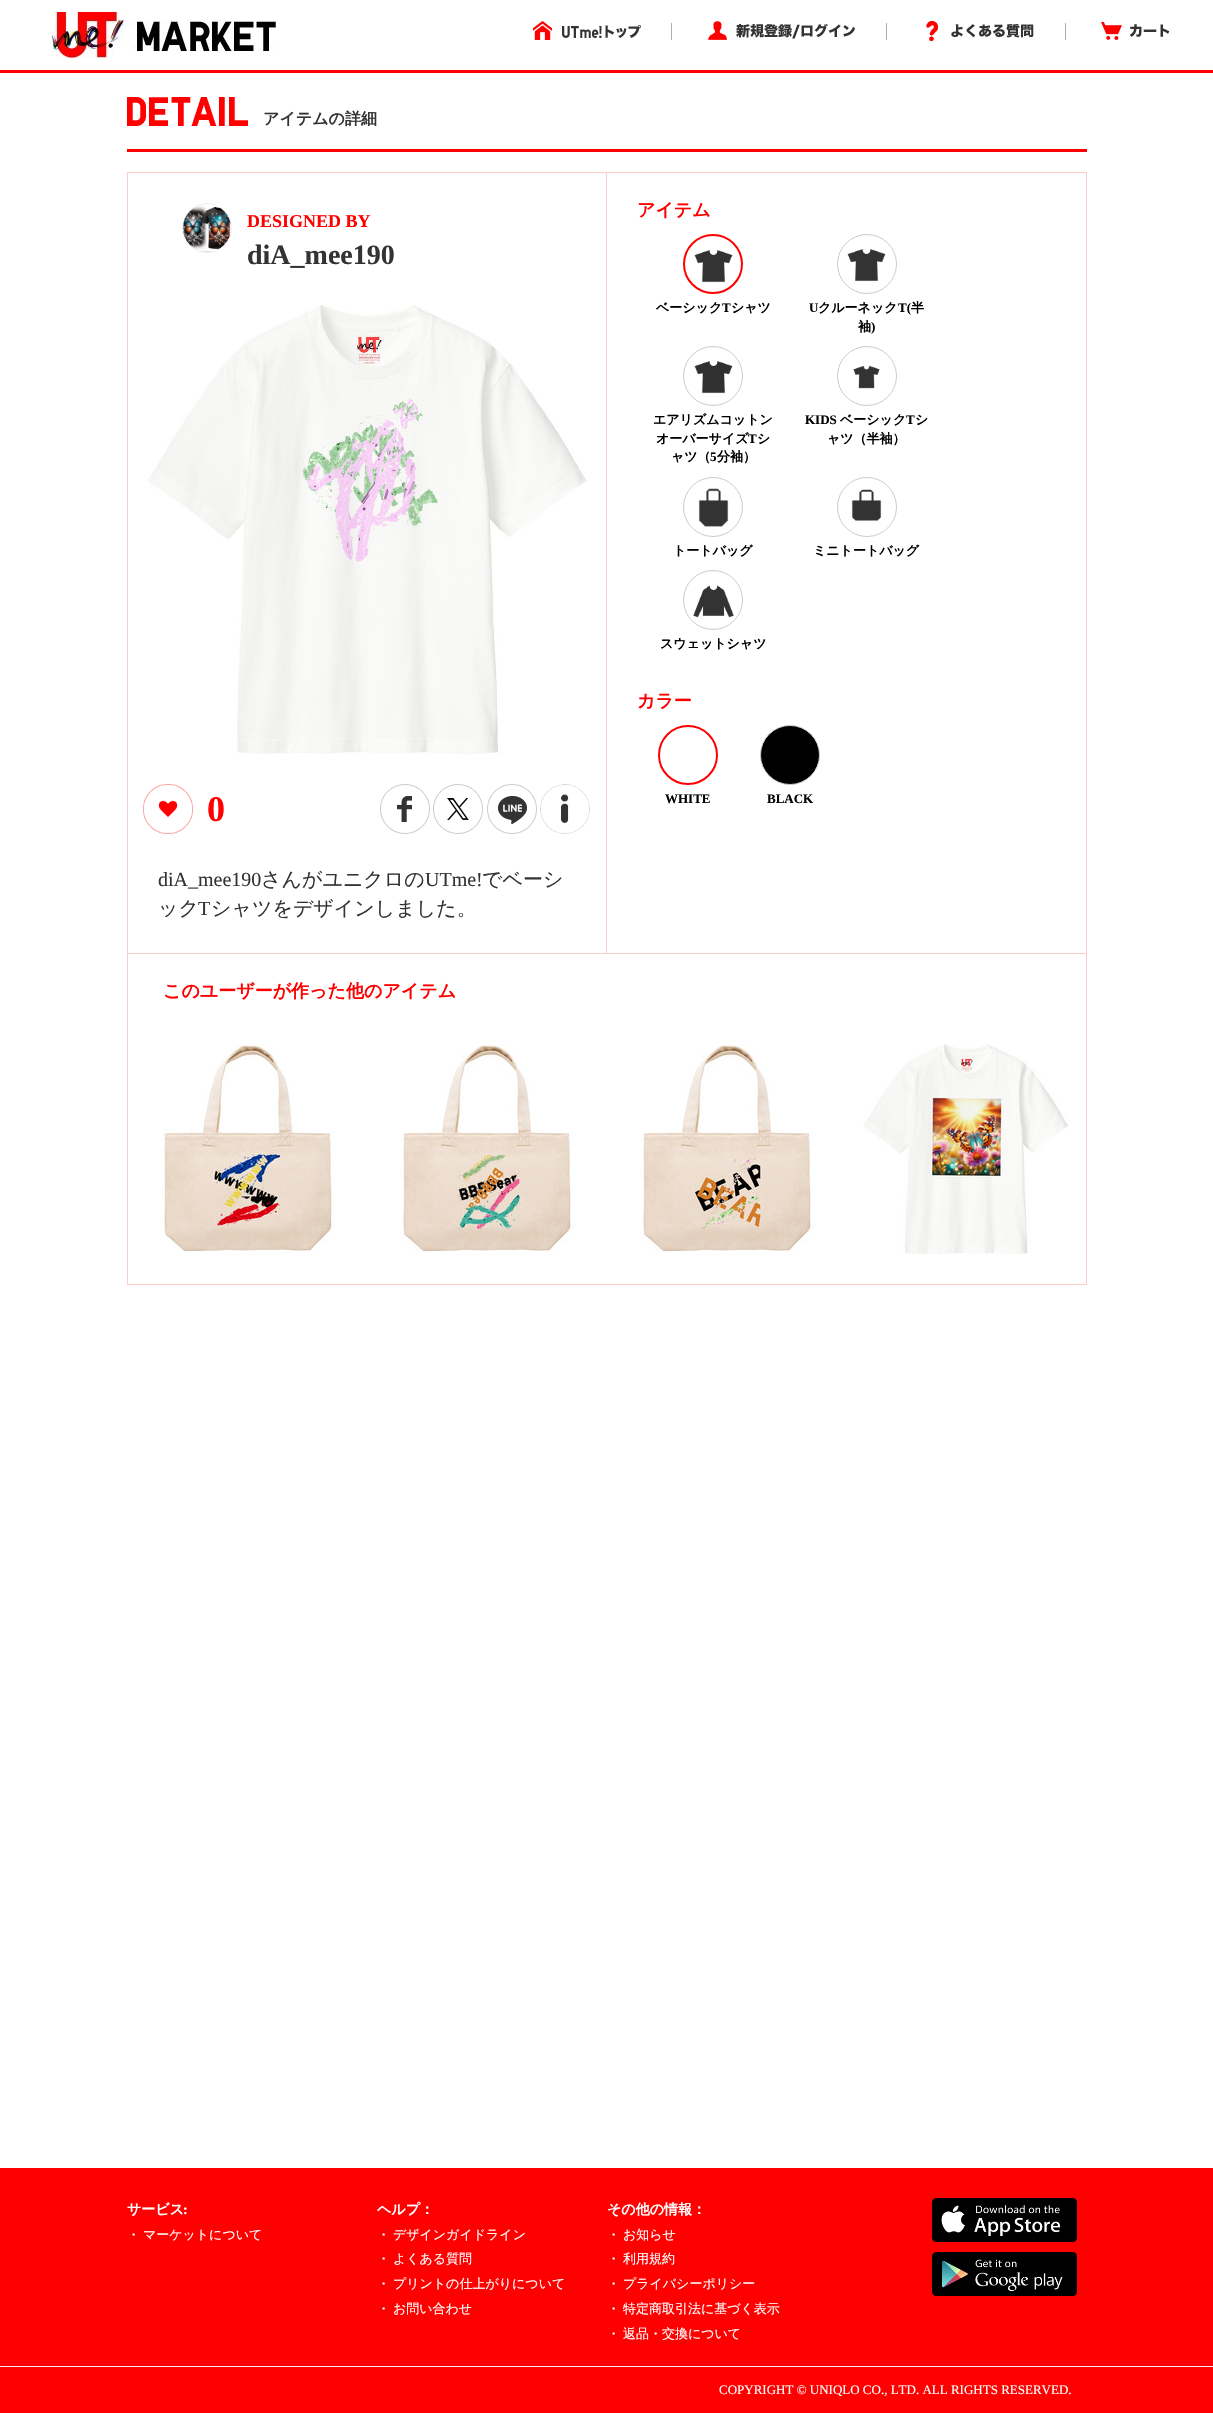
static SkFont makeFont(const char* family, int weight, float size, bool italic = false) {
  SkFontStyle style(weight, SkFontStyle::kNormal_Width,
    italic ? SkFontStyle::kItalic_Slant : SkFontStyle::kUpright_Slant);
  SkFont result(fontMgr->matchFamilyStyle(family, style), size);
  result.setSubpixel(true);
  return result;
}

static void text(SkCanvas* c, const char* s, float x, float y, const SkFont& font, SkColor color) {
  SkPaint ink(SkColor4f::FromColor(color));
  ink.setAntiAlias(true);
  c->drawString(s, x, y, font, ink);
}

static void spacedText(SkCanvas* c, const char* s, float x, float y, const SkFont& font, const SkPaint& ink, float letter, float word) {
  std::vector<SkGlyphID> glyphs(font.countText(s, strlen(s), SkTextEncoding::kUTF8));
  std::vector<float> xs(glyphs.size());
  font.textToGlyphs(s, strlen(s), SkTextEncoding::kUTF8, glyphs);
  font.getXPos(glyphs, xs, x);
  float extra = 0;
  for (size_t i = 0; i < glyphs.size(); i++) {
    xs[i] += extra;
    extra += letter + word * (glyphs[i] == font.unicharToGlyph(' '));
  }
  c->drawTextBlob(SkTextBlob::MakeFromPosHGlyphs(glyphs, xs, y, font), 0, 0, ink);
}

static void box(SkCanvas* c, float l, float t, float r, float b, SkColor color) {
  SkPaint ink(SkColor4f::FromColor(color));
  ink.setAntiAlias(true);
  c->drawRect(SkRect::MakeLTRB(l, t, r, b), ink);
}

static void picture(SkCanvas* c, const char* path, float l, float t, float r, float b) {
  auto image = SkImages::DeferredFromEncodedData(SkData::MakeFromFileName(path));
  c->drawImageRect(image, SkRect::MakeLTRB(l, t, r, b), SkSamplingOptions());
}

void draw(SkCanvas* c) {
  SkPaint paint;
  paint.setAntiAlias(true);
  c->clear(0xffffffff);
  picture(c, "img_01.png", 50, 12, 277, 58);
  picture(c, "img_02.png", 533, 21, 552, 40);
  picture(c, "img_03.png", 562, 25, 641, 38);
  box(c, 671, 23, 672, 40, 0xffaeaeae);
  picture(c, "img_04.png", 708, 21, 727, 40);
  picture(c, "img_05.png", 736, 24, 856, 39);
  box(c, 886, 23, 887, 40, 0xffaeaeae);
  picture(c, "img_06.png", 926, 21, 938, 41);
  picture(c, "img_07.png", 951, 24, 1034, 38);
  box(c, 1065, 23, 1066, 40, 0xffaeaeae);
  picture(c, "img_08.png", 1101, 22, 1122, 40);
  picture(c, "img_09.png", 1130, 24, 1170, 37);
  box(c, 0, 70, 1213, 73, 0xffff0000);
  picture(c, "img_10.png", 127, 97, 248, 126);
  SkFont face1 = makeFont("WenQuanYi Zen Hei", 700, 16);
  text(c, "アイテムの詳細", 263, 124, face1, 0xff333333);
  box(c, 127, 149, 1087, 152, 0xffff0000);
  paint.setStyle(SkPaint::kStroke_Style);
  paint.setStrokeWidth(1);
  paint.setColor(0xffffcccc);
  c->drawRect(SkRect::MakeLTRB(127.5f, 172.5f, 1086.5f, 953.5f), paint);
  box(c, 606, 173, 607, 953, 0xffffcccc);
  paint.setColor(0xffefefef);
  c->drawCircle(207, 228, 24.5f, paint);
  picture(c, "img_11.png", 183, 205, 231, 252);
  SkFont face2 = makeFont("Liberation Serif", 700, 18);
  text(c, "DESIGNED BY", 247, 227, face2, 0xffff0000);
  SkFont face3 = makeFont("Liberation Serif", 700, 28);
  text(c, "diA_mee190", 247, 264, face3, 0xff333333);
  picture(c, "img_12.png", 148, 305, 587, 754);
  picture(c, "img_13.png", 143, 784, 193, 834);
  SkFont face4 = makeFont("Liberation Serif", 700, 36);
  text(c, "0", 207, 821, face4, 0xffff0000);
  picture(c, "img_14.png", 380, 784, 430, 834);
  picture(c, "img_15.png", 433, 784, 483, 834);
  picture(c, "img_16.png", 487, 784, 537, 834);
  picture(c, "img_17.png", 540, 784, 590, 834);
  SkFont face5 = makeFont("Liberation Serif", 400, 20);
  text(c, "diA_mee190", 158, 886, face5, 0xff333333);
  SkFont face6 = makeFont("WenQuanYi Zen Hei", 500, 20);
  text(c, "さんがユニクロの", 261, 886, face6, 0xff333333);
  text(c, "UTme!", 425, 886, face5, 0xff333333);
  text(c, "でベーシ", 482, 886, face6, 0xff333333);
  text(c, "ック", 158, 915, face6, 0xff333333);
  text(c, "T", 198, 915, face5, 0xff333333);
  text(c, "シャツをデザインしました。", 211, 915, face6, 0xff333333);
  SkFont face7 = makeFont("WenQuanYi Zen Hei", 700, 18);
  text(c, "アイテム", 637, 216, face7, 0xffff0000);
  paint.setStrokeWidth(2);
  paint.setColor(0xffff0000);
  c->drawCircle(713, 264, 29, paint);
  picture(c, "img_18.png", 694, 250, 733, 283);
  SkFont face8 = makeFont("WenQuanYi Zen Hei", 700, 13);
  text(c, "ベーシック", 656, 312, face8, 0xff000000);
  SkFont face9 = makeFont("Liberation Serif", 700, 13);
  text(c, "T", 722, 312, face9, 0xff000000);
  text(c, "シャツ", 731, 312, face8, 0xff000000);
  paint.setStrokeWidth(1);
  paint.setColor(0xffcccccc);
  c->drawCircle(867, 264, 29.5f, paint);
  picture(c, "img_18.png", 847, 249, 886, 282);
  text(c, "U", 809, 312, face9, 0xff000000);
  text(c, "クルーネック", 818, 312, face8, 0xff000000);
  text(c, "T(", 898, 312, face9, 0xff000000);
  text(c, "半", 911, 312, face8, 0xff000000);
  text(c, "袖", 858, 331, face8, 0xff000000);
  text(c, ")", 871, 331, face9, 0xff000000);
  c->drawCircle(713, 376, 29.5f, paint);
  picture(c, "img_19.png", 694, 361, 733, 394);
  text(c, "エアリズムコットン", 653, 424, face8, 0xff000000);
  text(c, "オーバーサイズ", 656, 443, face8, 0xff000000);
  text(c, "T", 748, 443, face9, 0xff000000);
  text(c, "シ", 757, 443, face8, 0xff000000);
  text(c, "ャツ（", 671, 461, face8, 0xff000000);
  text(c, "5", 710, 461, face9, 0xff000000);
  text(c, "分袖）", 717, 461, face8, 0xff000000);
  c->drawCircle(867, 376, 29.5f, paint);
  picture(c, "img_20.png", 853, 365, 880, 389);
  text(c, "KIDS", 805, 424, face9, 0xff000000);
  text(c, "ベーシック", 840, 424, face8, 0xff000000);
  text(c, "T", 906, 424, face9, 0xff000000);
  text(c, "シ", 915, 424, face8, 0xff000000);
  text(c, "ャツ（半袖）", 827, 443, face8, 0xff000000);
  c->drawCircle(713, 507, 29.5f, paint);
  picture(c, "img_21.png", 698, 488, 729, 527);
  text(c, "トートバッグ", 673, 555, face8, 0xff000000);
  c->drawCircle(867, 507, 29.5f, paint);
  picture(c, "img_22.png", 851, 489, 882, 521);
  text(c, "ミニトートバッグ", 813, 555, face8, 0xff000000);
  c->drawCircle(713, 600, 29.5f, paint);
  picture(c, "img_23.png", 693, 585, 734, 618);
  text(c, "スウェットシャツ", 660, 648, face8, 0xff000000);
  text(c, "カラー", 637, 707, face7, 0xffff0000);
  paint.setStrokeWidth(2);
  paint.setColor(0xffff0000);
  c->drawCircle(688, 755, 29, paint);
  text(c, "WHITE", 665, 803, face9, 0xff000000);
  paint.setStyle(SkPaint::kFill_Style);
  paint.setColor(0xff000000);
  c->drawCircle(790, 755, 29.5f, paint);
  paint.setStyle(SkPaint::kStroke_Style);
  paint.setStrokeWidth(1);
  paint.setColor(0xffcccccc);
  c->drawCircle(790, 755, 29.5f, paint);
  text(c, "BLACK", 767, 803, face9, 0xff000000);
  box(c, 1086, 954, 1087, 1285, 0xffffcccc);
  box(c, 127, 1284, 1087, 1285, 0xffffcccc);
  box(c, 127, 954, 128, 1285, 0xffffcccc);
  text(c, "このユーザーが作った他のアイテム", 163, 997, face7, 0xffff0000);
  picture(c, "img_24.png", 161, 1044, 335, 1252);
  picture(c, "img_25.png", 400, 1044, 574, 1252);
  picture(c, "img_26.png", 640, 1044, 814, 1252);
  picture(c, "img_27.png", 863, 1044, 1069, 1254);
  box(c, 0, 2168, 1213, 2413, 0xffff0000);
  SkFont face10 = makeFont("WenQuanYi Zen Hei", 700, 14);
  text(c, "サービス", 127, 2214, face10, 0xffffffff);
  SkFont face11 = makeFont("Liberation Serif", 700, 14);
  text(c, ":", 183, 2214, face11, 0xffffffff);
  SkFont face12 = makeFont("WenQuanYi Zen Hei", 500, 13);
  paint.setStyle(SkPaint::kFill_Style);
  paint.setColor(0xffffffff);
  spacedText(c, "・ マーケットについて", 127, 2239, face12, paint, 0, -1);
  text(c, "ヘルプ：", 377, 2214, face10, 0xffffffff);
  spacedText(c, "・ デザインガイドライン", 377, 2239, face12, paint, 0, -1);
  spacedText(c, "・ よくある質問", 377, 2263, face12, paint, 0, -1);
  spacedText(c, "・ プリントの仕上がりについて", 377, 2288, face12, paint, 0, -1);
  spacedText(c, "・ お問い合わせ", 377, 2313, face12, paint, 0, -1);
  text(c, "その他の情報：", 607, 2214, face10, 0xffffffff);
  spacedText(c, "・ お知らせ", 607, 2239, face12, paint, 0, -1);
  spacedText(c, "・ 利用規約", 607, 2263, face12, paint, 0, -1);
  spacedText(c, "・ プライバシーポリシー", 607, 2288, face12, paint, 0, -1);
  spacedText(c, "・ 特定商取引法に基づく表示", 607, 2313, face12, paint, 0, -1);
  spacedText(c, "・ 返品・交換について", 607, 2338, face12, paint, 0, -1);
  picture(c, "img_28.png", 932, 2198, 1077, 2242);
  picture(c, "img_29.png", 932, 2252, 1077, 2296);
  box(c, 0, 2366, 1213, 2367, 0xffeeeeee);
  SkFont face13 = makeFont("Liberation Serif", 400, 13);
  text(c, "COPYRIGHT © UNIQLO CO., LTD. ALL RIGHTS RESERVED.", 719, 2394, face13, 0xffffffff);
}
